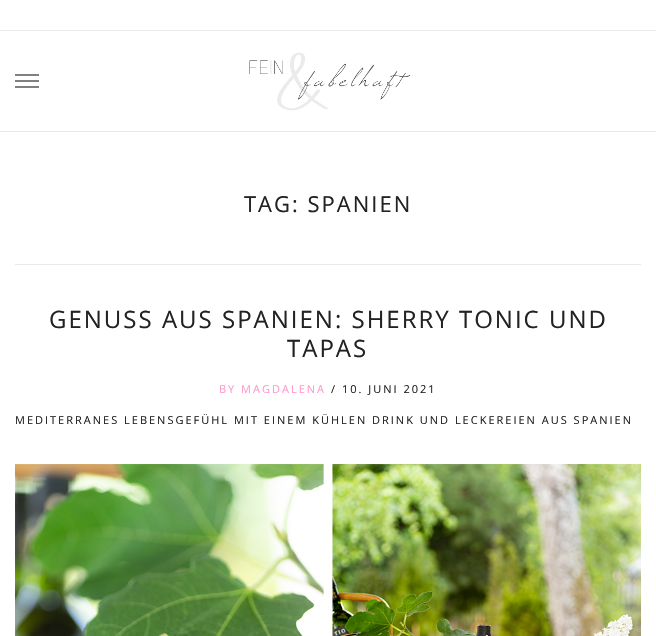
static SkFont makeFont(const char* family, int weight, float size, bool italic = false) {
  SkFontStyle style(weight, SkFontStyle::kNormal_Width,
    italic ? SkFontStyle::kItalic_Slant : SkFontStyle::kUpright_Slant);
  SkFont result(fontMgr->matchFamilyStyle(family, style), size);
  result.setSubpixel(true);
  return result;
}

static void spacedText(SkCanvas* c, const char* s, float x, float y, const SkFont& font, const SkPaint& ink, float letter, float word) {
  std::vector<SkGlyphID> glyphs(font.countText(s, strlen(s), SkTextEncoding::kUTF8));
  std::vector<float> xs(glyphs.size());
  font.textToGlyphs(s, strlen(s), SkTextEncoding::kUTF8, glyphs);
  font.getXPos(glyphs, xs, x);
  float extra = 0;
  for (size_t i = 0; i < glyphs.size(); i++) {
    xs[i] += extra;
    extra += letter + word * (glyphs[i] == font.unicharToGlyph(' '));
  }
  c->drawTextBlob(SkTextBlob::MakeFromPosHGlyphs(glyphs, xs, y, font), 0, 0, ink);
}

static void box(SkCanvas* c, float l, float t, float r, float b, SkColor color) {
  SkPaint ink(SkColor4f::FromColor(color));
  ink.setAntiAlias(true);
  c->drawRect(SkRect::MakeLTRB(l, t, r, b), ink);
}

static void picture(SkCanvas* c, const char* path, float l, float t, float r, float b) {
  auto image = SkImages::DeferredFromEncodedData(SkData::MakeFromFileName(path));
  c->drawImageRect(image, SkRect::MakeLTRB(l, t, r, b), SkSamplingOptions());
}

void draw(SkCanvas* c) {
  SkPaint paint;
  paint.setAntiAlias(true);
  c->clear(0xffffffff);
  box(c, 0, 30, 656, 31, 0xffe9e9e9);
  box(c, 15, 74, 39, 76, 0xff808080);
  box(c, 15, 80, 39, 82, 0xff808080);
  box(c, 15, 86, 39, 88, 0xff808080);
  picture(c, "img_01.png", 249, 52, 411, 111);
  box(c, 0, 131, 656, 132, 0xffe9e9e9);
  box(c, 15, 264, 641, 265, 0xffe9e9e9);
  SkFont face1 = makeFont("Open Sans", 400, 22);
  paint.setColor(0xff222222);
  spacedText(c, "TAG: SPANIEN", 244, 212, face1, paint, 2, 0);
  SkFont face2 = makeFont("Open Sans", 400, 24);
  spacedText(c, "GENUSS AUS SPANIEN: SHERRY TONIC UND", 49, 328, face2, paint, 2, 0);
  spacedText(c, "TAPAS", 287, 357, face2, paint, 2, 0);
  SkFont face3 = makeFont("Open Sans", 400, 11);
  paint.setColor(0xffff99cc);
  spacedText(c, "BY MAGDALENA", 219, 393, face3, paint, 2, 0);
  paint.setColor(0xff222222);
  spacedText(c, "/ 10. JUNI 2021", 331, 393, face3, paint, 2, 0);
  spacedText(c, "MEDITERRANES LEBENSGEFÜHL MIT EINEM KÜHLEN DRINK UND LECKEREIEN AUS SPANIEN", 15, 424, face3, paint, 2, 0);
  picture(c, "img_02.png", 15, 464, 641, 636);
}
